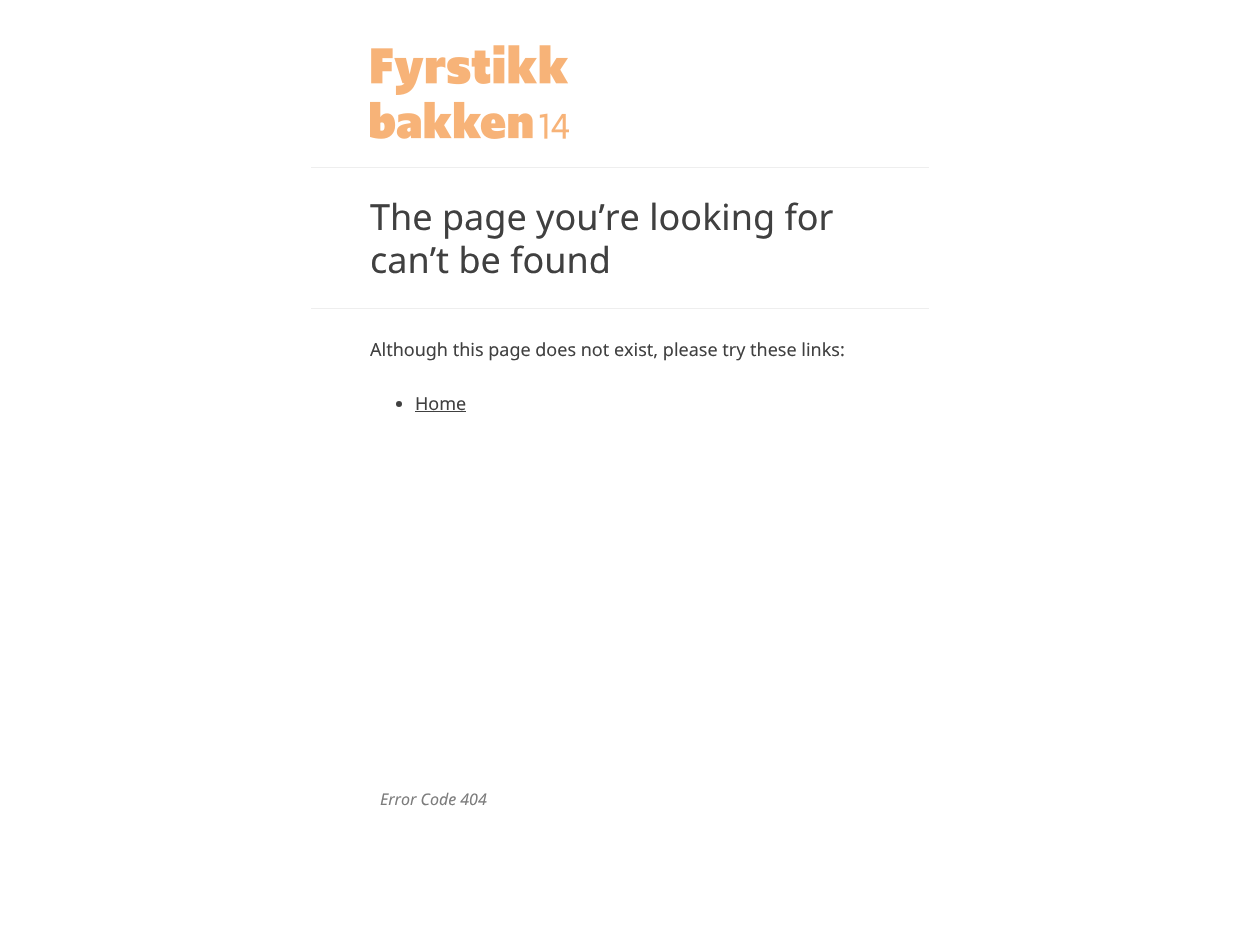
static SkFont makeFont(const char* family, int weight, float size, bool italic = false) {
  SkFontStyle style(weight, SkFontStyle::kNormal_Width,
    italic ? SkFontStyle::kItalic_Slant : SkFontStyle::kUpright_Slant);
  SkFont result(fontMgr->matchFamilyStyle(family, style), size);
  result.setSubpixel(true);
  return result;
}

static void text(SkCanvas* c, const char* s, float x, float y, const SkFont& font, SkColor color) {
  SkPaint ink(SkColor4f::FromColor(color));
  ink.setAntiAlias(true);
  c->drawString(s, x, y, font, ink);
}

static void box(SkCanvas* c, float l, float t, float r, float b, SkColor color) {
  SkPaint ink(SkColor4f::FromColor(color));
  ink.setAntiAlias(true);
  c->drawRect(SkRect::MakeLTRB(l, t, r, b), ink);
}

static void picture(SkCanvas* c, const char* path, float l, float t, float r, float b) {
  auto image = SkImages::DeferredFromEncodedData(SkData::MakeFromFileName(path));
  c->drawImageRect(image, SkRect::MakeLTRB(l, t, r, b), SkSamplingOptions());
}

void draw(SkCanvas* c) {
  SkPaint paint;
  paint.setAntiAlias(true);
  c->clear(0xffffffff);
  picture(c, "img_01.png", 370, 45, 569, 139);
  box(c, 311, 167, 929, 168, 0xffeeeeee);
  SkFont face1 = makeFont("Noto Sans", 400, 36);
  text(c, "The page you’re looking for", 370, 230, face1, 0xff404040);
  text(c, "can’t be found", 370, 273, face1, 0xff404040);
  box(c, 311, 308, 929, 309, 0xffeeeeee);
  SkFont face2 = makeFont("Noto Sans", 400, 18);
  text(c, "Although this page does not exist, please try these links:", 370, 356, face2, 0xff404040);
  paint.setColor(0xff404040);
  c->drawCircle(399, 404, 3, paint);
  text(c, "Home", 415, 410, face2, 0xff404040);
  box(c, 415, 411, 466, 412, 0xff404040);
  SkFont face3 = makeFont("Noto Sans", 400, 16, true);
  text(c, "Error Code 404", 380, 805, face3, 0xff7c7c7c);
}
